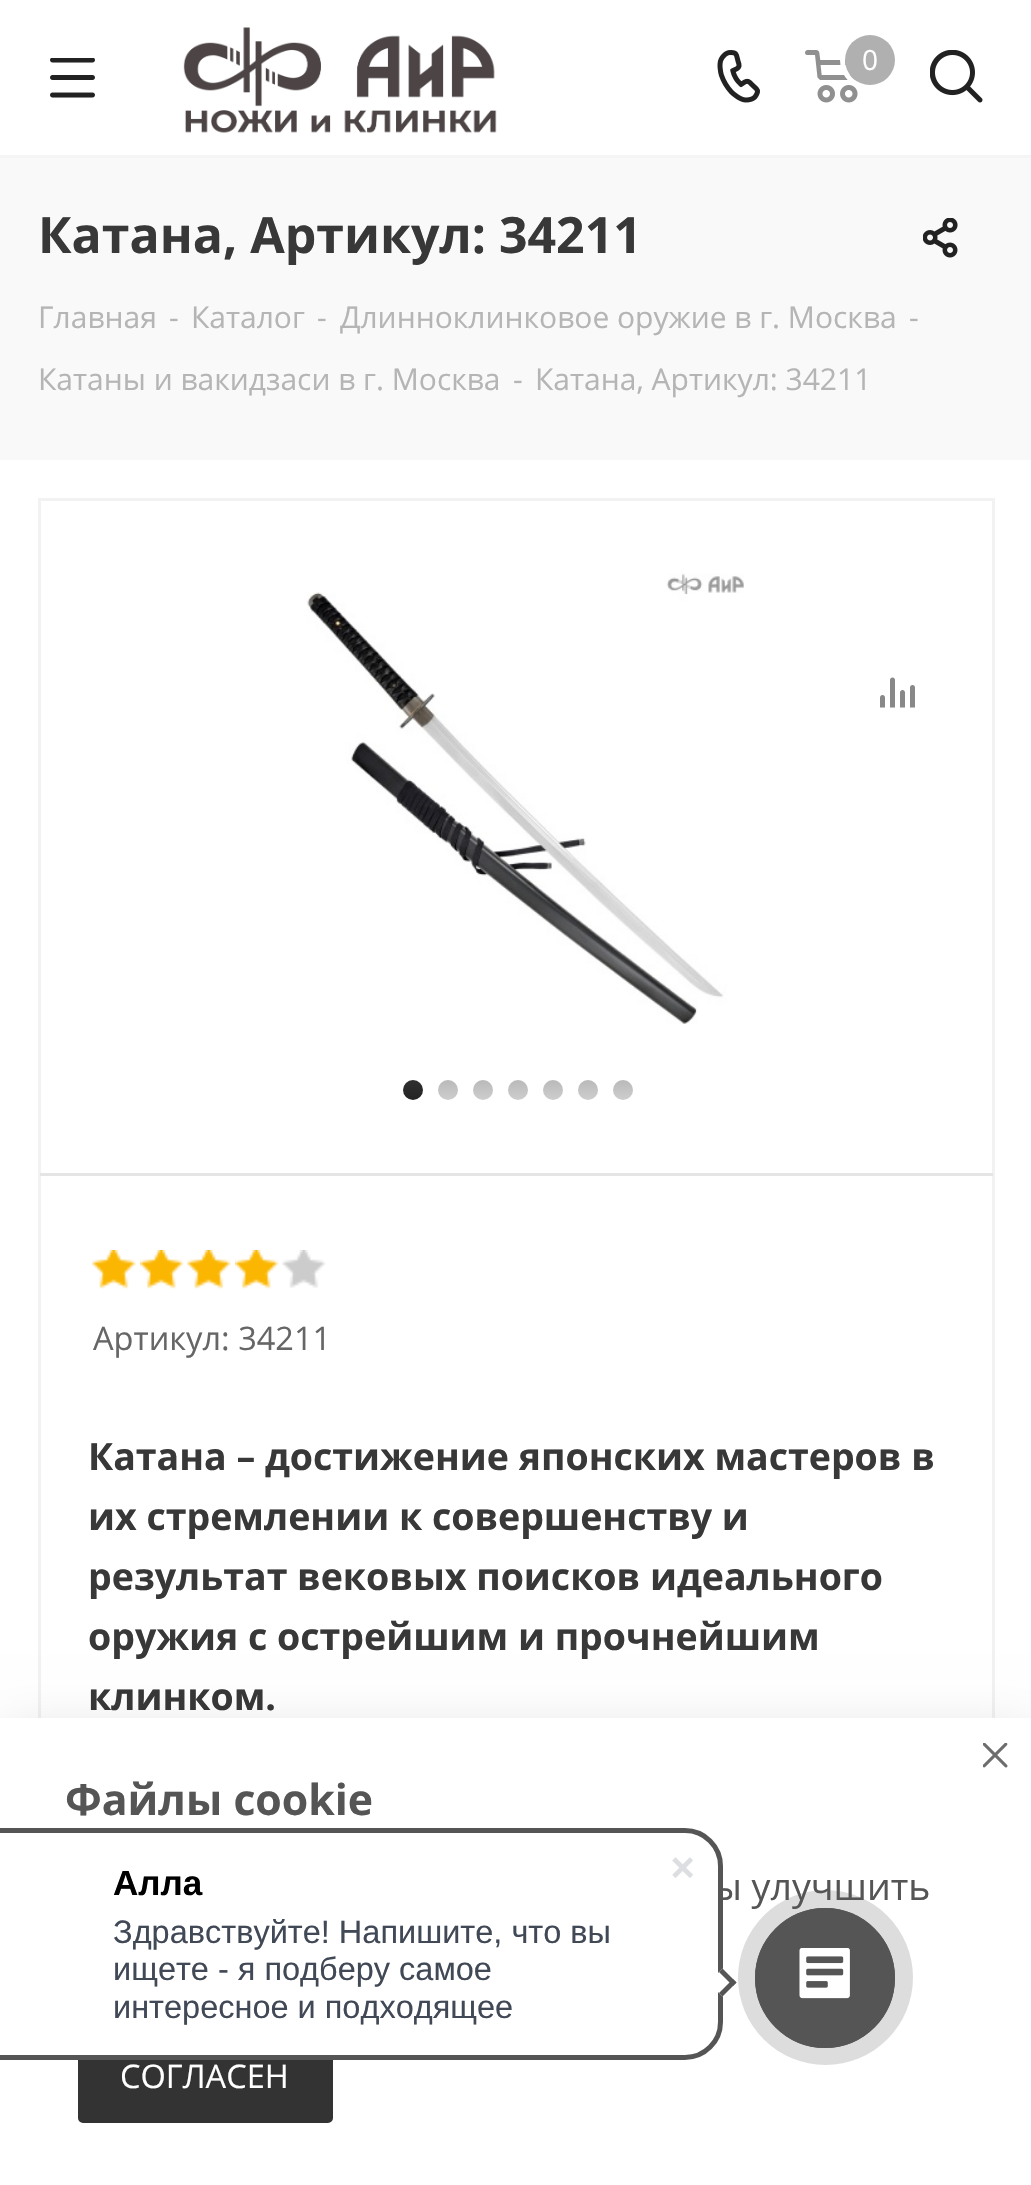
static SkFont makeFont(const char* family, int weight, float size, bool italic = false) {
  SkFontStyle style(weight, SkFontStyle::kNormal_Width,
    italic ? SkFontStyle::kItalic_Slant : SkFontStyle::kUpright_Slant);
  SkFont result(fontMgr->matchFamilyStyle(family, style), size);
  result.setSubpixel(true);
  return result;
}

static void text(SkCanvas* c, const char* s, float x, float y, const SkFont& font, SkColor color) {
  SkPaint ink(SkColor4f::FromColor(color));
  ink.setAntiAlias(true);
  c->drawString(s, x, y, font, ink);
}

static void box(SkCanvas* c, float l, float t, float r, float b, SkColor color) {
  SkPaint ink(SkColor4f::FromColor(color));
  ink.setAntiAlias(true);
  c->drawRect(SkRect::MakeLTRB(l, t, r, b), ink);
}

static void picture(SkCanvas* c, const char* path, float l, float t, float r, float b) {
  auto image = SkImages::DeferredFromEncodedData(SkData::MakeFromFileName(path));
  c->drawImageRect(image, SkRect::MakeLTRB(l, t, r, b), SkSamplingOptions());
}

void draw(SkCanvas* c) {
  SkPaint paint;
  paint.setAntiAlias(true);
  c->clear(0xffffffff);
  box(c, 0, 155, 1031, 158, 0xfff5f5f5);
  picture(c, "img_01.png", 50, 58, 95, 98);
  picture(c, "img_02.png", 183, 27, 497, 133);
  picture(c, "img_03.png", 717, 50, 760, 103);
  picture(c, "img_04.png", 805, 50, 858, 103);
  paint.setStyle(SkPaint::kStroke_Style);
  paint.setStrokeWidth(5);
  paint.setColor(0xffffffff);
  c->drawCircle(870, 60, 27.5f, paint);
  paint.setStyle(SkPaint::kFill_Style);
  paint.setColor(0xffb0b0b0);
  c->drawCircle(870, 60, 25, paint);
  SkFont face1 = makeFont("Open Sans", 400, 28);
  text(c, "0", 862, 70, face1, 0xffffffff);
  picture(c, "img_05.png", 930, 50, 983, 103);
  box(c, 0, 158, 1031, 460, 0xfff9f9f9);
  SkFont face2 = makeFont("Open Sans", 700, 50);
  text(c, "Катана, Артикул: 34211", 38, 253, face2, 0xff383838);
  picture(c, "img_06.png", 923, 218, 958, 258);
  SkFont face3 = makeFont("Open Sans", 400, 30);
  text(c, "Главная", 38, 328, face3, 0xffb6b5b5);
  text(c, "-", 169, 328, face3, 0xffb6b5b5);
  text(c, "Каталог", 191, 328, face3, 0xffb6b5b5);
  text(c, "-", 317, 328, face3, 0xffb6b5b5);
  text(c, "Длинноклинковое оружие в г. Москва", 340, 328, face3, 0xffb6b5b5);
  text(c, "-", 909, 328, face3, 0xffb6b5b5);
  text(c, "Катаны и вакидзаси в г. Москва", 38, 390, face3, 0xffb6b5b5);
  text(c, "-", 513, 390, face3, 0xffb6b5b5);
  text(c, "Катана, Артикул: 34211", 535, 390, face3, 0xffb6b5b5);
  paint.setStyle(SkPaint::kStroke_Style);
  paint.setStrokeWidth(3);
  paint.setColor(0xfff2f2f2);
  c->drawRect(SkRect::MakeLTRB(39.5f, 499.5f, 993.5f, 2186.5f), paint);
  picture(c, "img_07.png", 306, 573, 744, 1024);
  paint.setStyle(SkPaint::kFill_Style);
  {
    const SkColor colors[] = {0xff313030, 0xff242323};
    const float stops[] = {0, 1};
    const SkPoint ends[] = {{413, 1080}, {413, 1100}};
    paint.setShader(SkGradientShader::MakeLinear(ends, colors, stops, 2, SkTileMode::kClamp));
    paint.setAlpha(255);
  }
  c->drawCircle(413, 1090, 10, paint);
  {
    const SkColor colors[] = {0xffb9b9b9, 0xffcdcdcd};
    const float stops[] = {0, 1};
    const SkPoint ends[] = {{448, 1080}, {448, 1100}};
    paint.setShader(SkGradientShader::MakeLinear(ends, colors, stops, 2, SkTileMode::kClamp));
    paint.setAlpha(255);
  }
  c->drawCircle(448, 1090, 10, paint);
  {
    const SkColor colors[] = {0xffb9b9b9, 0xffcdcdcd};
    const float stops[] = {0, 1};
    const SkPoint ends[] = {{483, 1080}, {483, 1100}};
    paint.setShader(SkGradientShader::MakeLinear(ends, colors, stops, 2, SkTileMode::kClamp));
    paint.setAlpha(255);
  }
  c->drawCircle(483, 1090, 10, paint);
  {
    const SkColor colors[] = {0xffb9b9b9, 0xffcdcdcd};
    const float stops[] = {0, 1};
    const SkPoint ends[] = {{518, 1080}, {518, 1100}};
    paint.setShader(SkGradientShader::MakeLinear(ends, colors, stops, 2, SkTileMode::kClamp));
    paint.setAlpha(255);
  }
  c->drawCircle(518, 1090, 10, paint);
  {
    const SkColor colors[] = {0xffb9b9b9, 0xffcdcdcd};
    const float stops[] = {0, 1};
    const SkPoint ends[] = {{553, 1080}, {553, 1100}};
    paint.setShader(SkGradientShader::MakeLinear(ends, colors, stops, 2, SkTileMode::kClamp));
    paint.setAlpha(255);
  }
  c->drawCircle(553, 1090, 10, paint);
  {
    const SkColor colors[] = {0xffb9b9b9, 0xffcdcdcd};
    const float stops[] = {0, 1};
    const SkPoint ends[] = {{588, 1080}, {588, 1100}};
    paint.setShader(SkGradientShader::MakeLinear(ends, colors, stops, 2, SkTileMode::kClamp));
    paint.setAlpha(255);
  }
  c->drawCircle(588, 1090, 10, paint);
  {
    const SkColor colors[] = {0xffb9b9b9, 0xffcdcdcd};
    const float stops[] = {0, 1};
    const SkPoint ends[] = {{623, 1080}, {623, 1100}};
    paint.setShader(SkGradientShader::MakeLinear(ends, colors, stops, 2, SkTileMode::kClamp));
    paint.setAlpha(255);
  }
  c->drawCircle(623, 1090, 10, paint);
  picture(c, "img_08.png", 880, 677, 915, 708);
  box(c, 40, 1173, 993, 1176, 0xffe5e5e5);
  picture(c, "img_09.png", 92, 1250, 136, 1289);
  picture(c, "img_10.png", 140, 1250, 184, 1289);
  picture(c, "img_09.png", 187, 1250, 231, 1289);
  picture(c, "img_11.png", 235, 1250, 279, 1289);
  picture(c, "img_12.png", 282, 1250, 326, 1288);
  SkFont face4 = makeFont("Open Sans", 400, 32.5f);
  text(c, "Артикул: 34211", 93, 1350, face4, 0xff666666);
  SkFont face5 = makeFont("Open Sans", 700, 37.5f);
  text(c, "Катана – достижение японских мастеров в", 88, 1470, face5, 0xff383838);
  text(c, "их стремлении к совершенству и", 88, 1530, face5, 0xff383838);
  text(c, "результат вековых поисков идеального", 88, 1590, face5, 0xff383838);
  text(c, "оружия с острейшим и прочнейшим", 88, 1650, face5, 0xff383838);
  text(c, "клинком.", 88, 1710, face5, 0xff383838);
  paint.setShader(nullptr);
  paint.setColor(0x1f000000);
  paint.setMaskFilter(SkMaskFilter::MakeBlur(kNormal_SkBlurStyle, 25));
  c->drawRect(SkRect::MakeLTRB(0, 1730, 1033, 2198), paint);
  paint.setMaskFilter(nullptr);
  box(c, 0, 1718, 1031, 2185, 0xffffffff);
  picture(c, "img_13.png", 983, 1743, 1008, 1768);
  SkFont face6 = makeFont("Open Sans", 700, 42.75f);
  text(c, "Файлы cookie", 65, 1815, face6, 0xff555555);
  SkFont face7 = makeFont("Open Sans", 400, 37.5f);
  text(c, "ы улучшить", 713, 1900, face7, 0xff555555);
  paint.setColor(0xff333333);
  c->drawRoundRect(SkRect::MakeLTRB(79.5f, 2034.5f, 331.5f, 2121.5f), 3.5f, 3.5f, paint);
  paint.setStyle(SkPaint::kStroke_Style);
  c->drawRoundRect(SkRect::MakeLTRB(79.5f, 2034.5f, 331.5f, 2121.5f), 3.5f, 3.5f, paint);
  text(c, "СОГЛАСЕН", 120, 2088, face4, 0xffffffff);
  paint.setStyle(SkPaint::kFill_Style);
  paint.setColor(0xffffffff);
  c->drawRoundRect(SkRect::MakeLTRB(-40.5f, 1830.5f, 720.5f, 2057.5f), 35.5f, 35.5f, paint);
  paint.setStyle(SkPaint::kStroke_Style);
  paint.setStrokeWidth(5);
  paint.setColor(0xff555555);
  c->drawRoundRect(SkRect::MakeLTRB(-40.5f, 1830.5f, 720.5f, 2057.5f), 35.5f, 35.5f, paint);
  picture(c, "img_14.png", 672, 1857, 693, 1878);
  SkFont face8 = makeFont("Liberation Sans", 700, 35);
  text(c, "Алла", 113, 1895, face8, 0xff000000);
  SkFont face9 = makeFont("Liberation Sans", 400, 32.5f);
  text(c, "Здравствуйте! Напишите, что вы", 113, 1943, face9, 0xff424956);
  text(c, "ищете - я подберу самое", 113, 1980, face9, 0xff424956);
  text(c, "интересное и подходящее", 113, 2018, face9, 0xff424956);
  paint.setStyle(SkPaint::kFill_Style);
  paint.setColor(0xffffffff);
  c->drawPath(SkPathBuilder().moveTo(708.5f, 1982.5f).lineTo(722.5f, 1968.5f).lineTo(736.5f, 1982.5f).lineTo(722.5f, 1996.5f).close().detach(), paint);
  paint.setColor(0xff555555);
  c->drawPath(SkPathBuilder().moveTo(719, 1972).lineTo(722.5f, 1968.5f).lineTo(736.5f, 1982.5f).lineTo(733, 1986).close().detach(), paint);
  c->drawPath(SkPathBuilder().moveTo(719, 1993).lineTo(733, 1979).lineTo(736.5f, 1982.5f).lineTo(722.5f, 1996.5f).close().detach(), paint);
  paint.setColor(0x33555555);
  c->drawCircle(825.5f, 1977.5f, 87.5f, paint);
  paint.setStyle(SkPaint::kStroke_Style);
  paint.setStrokeWidth(2);
  paint.setColor(0xff555555);
  c->drawCircle(825, 1978, 69, paint);
  paint.setStyle(SkPaint::kFill_Style);
  c->drawCircle(825, 1978, 70, paint);
  picture(c, "img_15.png", 799, 1948, 850, 1999);
}
